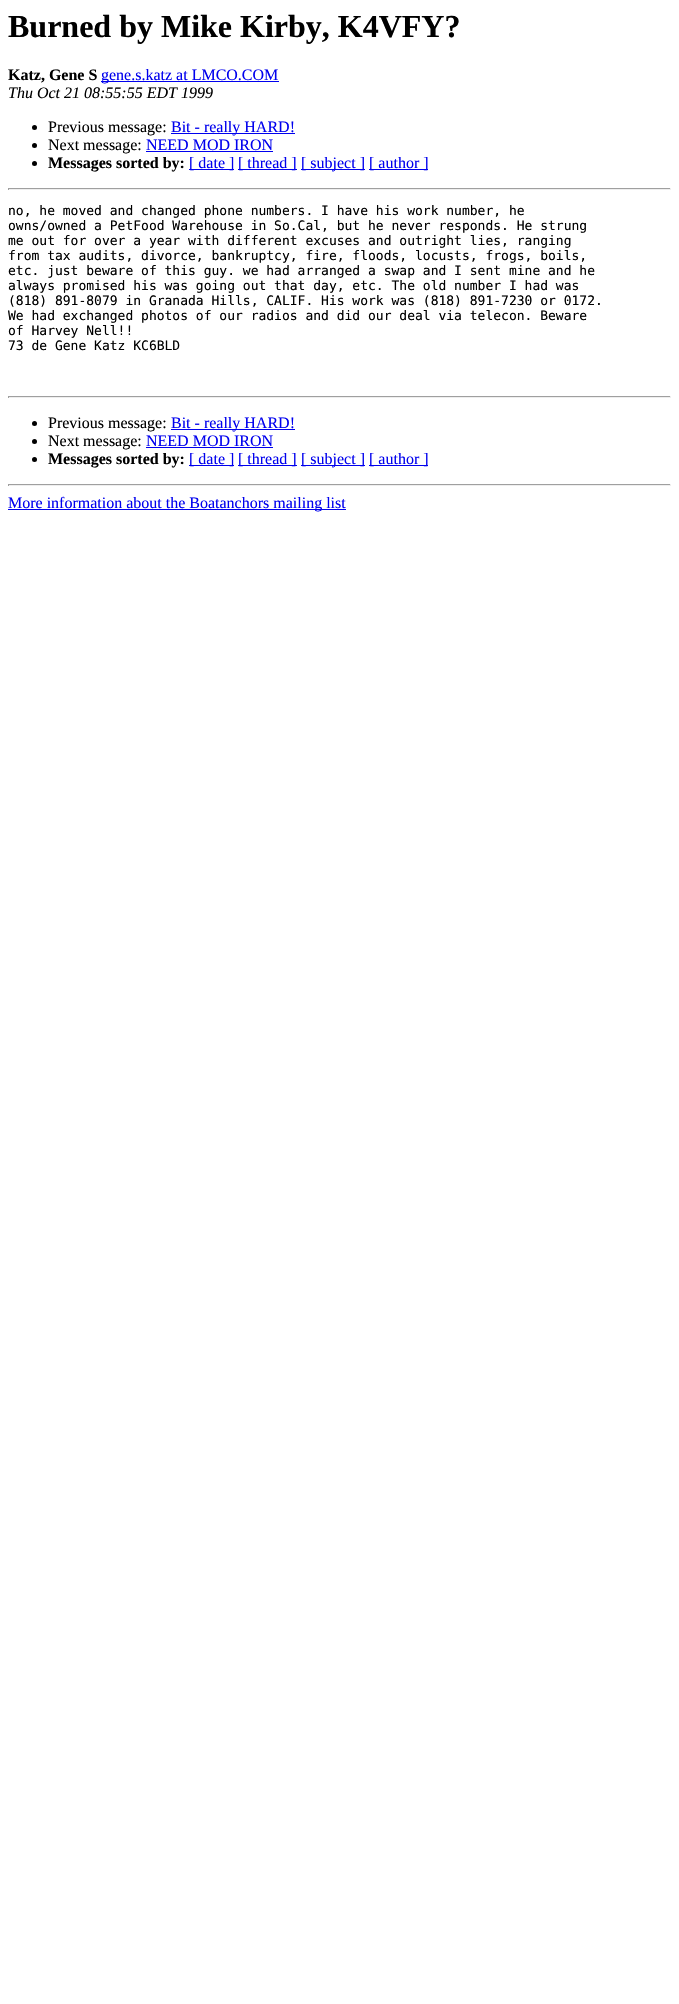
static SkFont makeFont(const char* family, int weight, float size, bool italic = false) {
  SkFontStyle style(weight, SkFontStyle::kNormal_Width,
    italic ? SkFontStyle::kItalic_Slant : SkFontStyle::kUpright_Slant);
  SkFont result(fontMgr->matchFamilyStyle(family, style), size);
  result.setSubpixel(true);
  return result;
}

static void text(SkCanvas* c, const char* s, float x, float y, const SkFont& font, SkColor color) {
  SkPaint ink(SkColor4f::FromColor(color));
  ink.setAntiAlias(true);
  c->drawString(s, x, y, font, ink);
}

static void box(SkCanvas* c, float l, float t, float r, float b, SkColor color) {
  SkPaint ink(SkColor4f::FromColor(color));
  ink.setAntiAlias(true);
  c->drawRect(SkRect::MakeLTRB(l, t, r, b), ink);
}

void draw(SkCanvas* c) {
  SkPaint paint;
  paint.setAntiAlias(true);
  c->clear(0xffffffff);
  SkFont face1 = makeFont("Liberation Serif", 700, 32);
  text(c, "Burned by Mike Kirby, K4VFY?", 8, 37, face1, 0xff000000);
  SkFont face2 = makeFont("Liberation Serif", 700, 16);
  text(c, "Katz, Gene S", 8, 80, face2, 0xff000000);
  box(c, 101, 81, 279, 82, 0xff0000ee);
  SkFont face3 = makeFont("Liberation Serif", 400, 16);
  text(c, "gene.s.katz at LMCO.COM", 101, 80, face3, 0xff0000ee);
  SkFont face4 = makeFont("Liberation Serif", 400, 16, true);
  text(c, "Thu Oct 21 08:55:55 EDT 1999", 8, 98, face4, 0xff000000);
  paint.setColor(0xff000000);
  c->drawCircle(34.5f, 127.5f, 2.5f, paint);
  text(c, "Previous message:", 48, 132, face3, 0xff000000);
  box(c, 171, 133, 295, 134, 0xff0000ee);
  text(c, "Bit - really HARD!", 171, 132, face3, 0xff0000ee);
  c->drawCircle(34.5f, 145.5f, 2.5f, paint);
  text(c, "Next message:", 48, 150, face3, 0xff000000);
  text(c, "NEED MOD IRON", 146, 150, face3, 0xff0000ee);
  box(c, 146, 151, 273, 152, 0xff0000ee);
  c->drawCircle(34.5f, 163.5f, 2.5f, paint);
  text(c, "Messages sorted by:", 48, 168, face2, 0xff000000);
  box(c, 189, 169, 234, 170, 0xff0000ee);
  text(c, "[ date ]", 189, 168, face3, 0xff0000ee);
  box(c, 238, 169, 297, 170, 0xff0000ee);
  text(c, "[ thread ]", 238, 168, face3, 0xff0000ee);
  box(c, 301, 169, 365, 170, 0xff0000ee);
  text(c, "[ subject ]", 301, 168, face3, 0xff0000ee);
  box(c, 369, 169, 428, 170, 0xff0000ee);
  text(c, "[ author ]", 369, 168, face3, 0xff0000ee);
  box(c, 8, 188, 671, 189, 0xff9f9f9f);
  box(c, 670, 188, 671, 190, 0xffeeeeee);
  box(c, 8, 189, 671, 190, 0xffeeeeee);
  box(c, 8, 188, 9, 190, 0xff9f9f9f);
  SkFont face5 = makeFont("DejaVu Sans Mono", 400, 13);
  text(c, "no, he moved and changed phone numbers. I have his work number, he", 8, 215, face5, 0xff000000);
  text(c, "owns/owned a PetFood Warehouse in So.Cal, but he never responds. He strung", 8, 230, face5, 0xff000000);
  text(c, "me out for over a year with different excuses and outright lies, ranging", 8, 245, face5, 0xff000000);
  text(c, "from tax audits, divorce, bankruptcy, fire, floods, locusts, frogs, boils,", 8, 260, face5, 0xff000000);
  text(c, "etc. just beware of this guy. we had arranged a swap and I sent mine and he", 8, 275, face5, 0xff000000);
  text(c, "always promised his was going out that day, etc. The old number I had was", 8, 290, face5, 0xff000000);
  text(c, "(818) 891-8079 in Granada Hills, CALIF. His work was (818) 891-7230 or 0172.", 8, 305, face5, 0xff000000);
  text(c, "We had exchanged photos of our radios and did our deal via telecon. Beware", 8, 320, face5, 0xff000000);
  text(c, "of Harvey Nell!!", 8, 335, face5, 0xff000000);
  text(c, "73 de Gene Katz KC6BLD", 8, 350, face5, 0xff000000);
  box(c, 8, 396, 671, 397, 0xff9f9f9f);
  box(c, 670, 396, 671, 398, 0xffeeeeee);
  box(c, 8, 397, 671, 398, 0xffeeeeee);
  box(c, 8, 396, 9, 398, 0xff9f9f9f);
  c->drawCircle(34.5f, 423.5f, 2.5f, paint);
  text(c, "Previous message:", 48, 428, face3, 0xff000000);
  box(c, 171, 429, 295, 430, 0xff0000ee);
  text(c, "Bit - really HARD!", 171, 428, face3, 0xff0000ee);
  c->drawCircle(34.5f, 441.5f, 2.5f, paint);
  text(c, "Next message:", 48, 446, face3, 0xff000000);
  text(c, "NEED MOD IRON", 146, 446, face3, 0xff0000ee);
  box(c, 146, 447, 273, 448, 0xff0000ee);
  c->drawCircle(34.5f, 459.5f, 2.5f, paint);
  text(c, "Messages sorted by:", 48, 464, face2, 0xff000000);
  box(c, 189, 465, 234, 466, 0xff0000ee);
  text(c, "[ date ]", 189, 464, face3, 0xff0000ee);
  box(c, 238, 465, 297, 466, 0xff0000ee);
  text(c, "[ thread ]", 238, 464, face3, 0xff0000ee);
  box(c, 301, 465, 365, 466, 0xff0000ee);
  text(c, "[ subject ]", 301, 464, face3, 0xff0000ee);
  box(c, 369, 465, 428, 466, 0xff0000ee);
  text(c, "[ author ]", 369, 464, face3, 0xff0000ee);
  box(c, 8, 484, 671, 485, 0xff9f9f9f);
  box(c, 670, 484, 671, 486, 0xffeeeeee);
  box(c, 8, 485, 671, 486, 0xffeeeeee);
  box(c, 8, 484, 9, 486, 0xff9f9f9f);
  box(c, 8, 509, 346, 510, 0xff0000ee);
  text(c, "More information about the Boatanchors mailing list", 8, 508, face3, 0xff0000ee);
}
